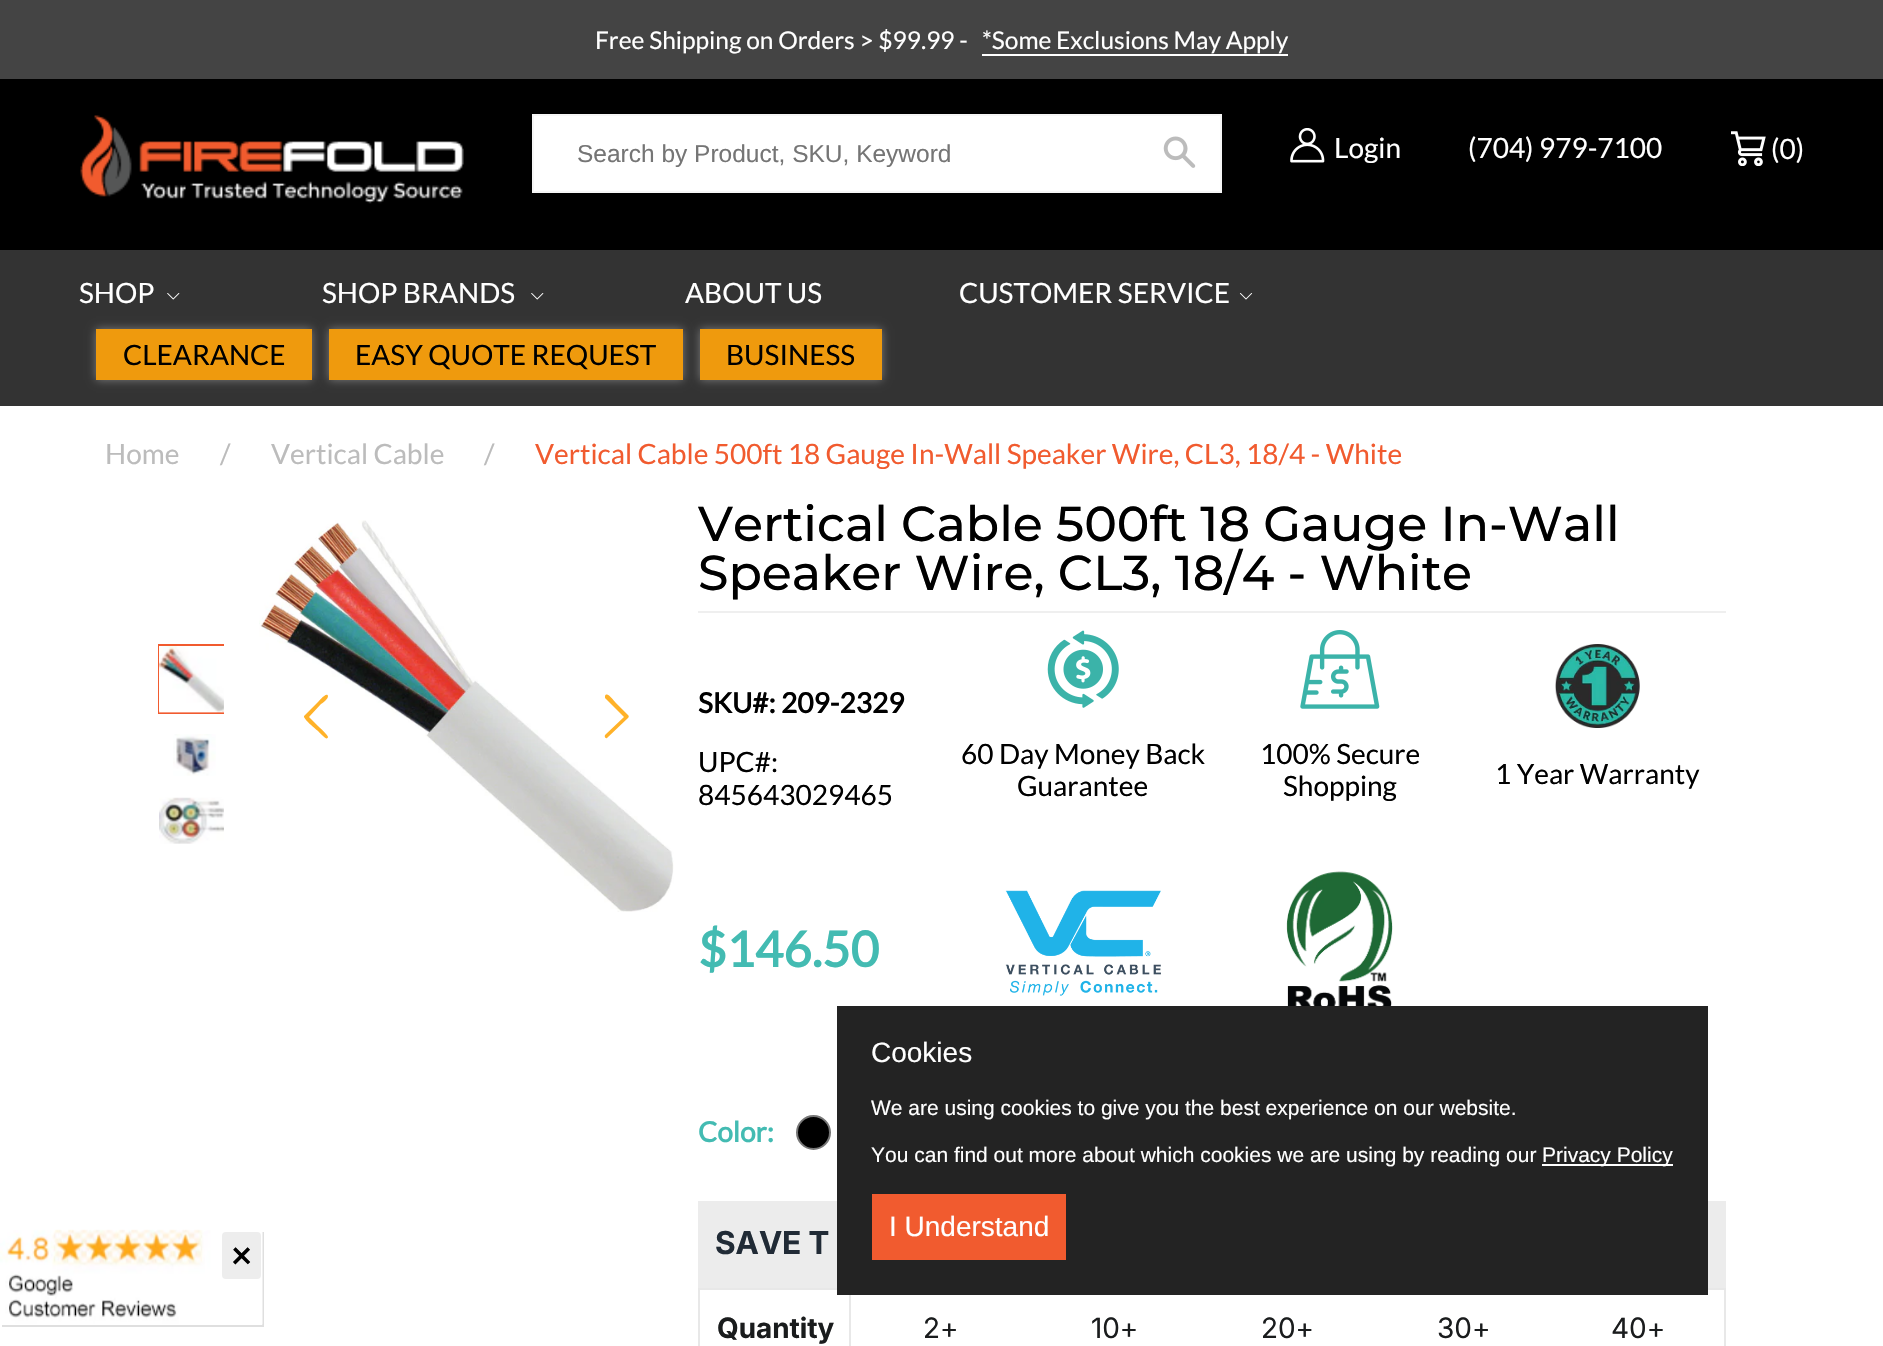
static SkFont makeFont(const char* family, int weight, float size, bool italic = false) {
  SkFontStyle style(weight, SkFontStyle::kNormal_Width,
    italic ? SkFontStyle::kItalic_Slant : SkFontStyle::kUpright_Slant);
  SkFont result(fontMgr->matchFamilyStyle(family, style), size);
  result.setSubpixel(true);
  return result;
}

static void text(SkCanvas* c, const char* s, float x, float y, const SkFont& font, SkColor color) {
  SkPaint ink(SkColor4f::FromColor(color));
  ink.setAntiAlias(true);
  c->drawString(s, x, y, font, ink);
}

static void box(SkCanvas* c, float l, float t, float r, float b, SkColor color) {
  SkPaint ink(SkColor4f::FromColor(color));
  ink.setAntiAlias(true);
  c->drawRect(SkRect::MakeLTRB(l, t, r, b), ink);
}

static void roundBox(SkCanvas* c, float l, float t, float r, float b, float radius, SkColor color) {
  SkPaint ink(SkColor4f::FromColor(color));
  ink.setAntiAlias(true);
  c->drawRoundRect(SkRect::MakeLTRB(l, t, r, b), radius, radius, ink);
}

static void picture(SkCanvas* c, const char* path, float l, float t, float r, float b) {
  auto image = SkImages::DeferredFromEncodedData(SkData::MakeFromFileName(path));
  c->drawImageRect(image, SkRect::MakeLTRB(l, t, r, b), SkSamplingOptions());
}

void draw(SkCanvas* c) {
  SkPaint paint;
  paint.setAntiAlias(true);
  c->clear(0xffffffff);
  box(c, 0, 79, 1883, 250, 0xff000000);
  box(c, 0, 0, 1883, 79, 0xff444444);
  SkFont face1 = makeFont("Lato", 400, 24.5f);
  text(c, "Free Shipping on Orders > $99.99 -", 595, 49, face1, 0xffffffff);
  text(c, "*Some Exclusions May Apply", 982, 49, face1, 0xffffffff);
  box(c, 982, 54, 1288, 56, 0xffffffff);
  picture(c, "img_01.png", 80, 115, 464, 204);
  paint.setColor(0xffffffff);
  c->drawRect(SkRect::MakeLTRB(533, 115, 1221, 192), paint);
  paint.setStyle(SkPaint::kStroke_Style);
  paint.setStrokeWidth(2);
  paint.setColor(0xfff6f6f6);
  c->drawRect(SkRect::MakeLTRB(533, 115, 1221, 192), paint);
  SkFont face2 = makeFont("Liberation Sans", 400, 24.5f);
  text(c, "Search by Product, SKU, Keyword", 577, 162, face2, 0xff757575);
  picture(c, "img_02.png", 1163, 136, 1196, 168);
  picture(c, "img_03.png", 1290, 128, 1325, 163);
  SkFont face3 = makeFont("Lato", 400, 28);
  text(c, "Login", 1334, 158, face3, 0xffffffff);
  text(c, "(704) 979-7100", 1468, 158, face3, 0xffffffff);
  picture(c, "img_04.png", 1731, 131, 1766, 166);
  text(c, "(0)", 1771, 159, face3, 0xffffffff);
  box(c, 0, 250, 1883, 406, 0xff333333);
  text(c, "SHOP", 79, 303, face3, 0xffffffff);
  picture(c, "img_05.png", 167, 293, 180, 300);
  text(c, "SHOP BRANDS", 322, 303, face3, 0xffffffff);
  picture(c, "img_05.png", 531, 293, 544, 300);
  text(c, "ABOUT US", 685, 303, face3, 0xffffffff);
  text(c, "CUSTOMER SERVICE", 959, 303, face3, 0xffffffff);
  picture(c, "img_06.png", 1239, 293, 1253, 300);
  paint.setStyle(SkPaint::kFill_Style);
  paint.setColor(0xff7c7c7c);
  paint.setMaskFilter(SkMaskFilter::MakeBlur(kNormal_SkBlurStyle, 4.5f));
  c->drawRect(SkRect::MakeLTRB(96, 329, 312, 380), paint);
  paint.setMaskFilter(nullptr);
  box(c, 96, 329, 312, 380, 0xffef9a0d);
  text(c, "CLEARANCE", 123, 365, face3, 0xff000000);
  paint.setMaskFilter(SkMaskFilter::MakeBlur(kNormal_SkBlurStyle, 4.5f));
  c->drawRect(SkRect::MakeLTRB(329, 329, 683, 380), paint);
  paint.setMaskFilter(nullptr);
  box(c, 329, 329, 683, 380, 0xffef9a0d);
  text(c, "EASY QUOTE REQUEST", 355, 365, face3, 0xff000000);
  paint.setMaskFilter(SkMaskFilter::MakeBlur(kNormal_SkBlurStyle, 4.5f));
  c->drawRect(SkRect::MakeLTRB(700, 329, 882, 380), paint);
  paint.setMaskFilter(nullptr);
  box(c, 700, 329, 882, 380, 0xffef9a0d);
  text(c, "BUSINESS", 726, 365, face3, 0xff000000);
  text(c, "Home", 105, 464, face3, 0xffbcbcbc);
  text(c, "/", 220, 464, face3, 0xffbcbcbc);
  text(c, "Vertical Cable", 271, 464, face3, 0xffbcbcbc);
  text(c, "/", 484, 464, face3, 0xffbcbcbc);
  text(c, "Vertical Cable 500ft 18 Gauge In-Wall Speaker Wire, CL3, 18/4 - White", 535, 464, face3, 0xfff15b2f);
  paint.setStyle(SkPaint::kStroke_Style);
  paint.setColor(0xfff15b2f);
  c->drawRect(SkRect::MakeLTRB(159, 645, 223, 713), paint);
  picture(c, "img_07.png", 159, 646, 224, 713);
  picture(c, "img_08.png", 173, 734, 216, 776);
  picture(c, "img_09.png", 159, 797, 224, 844);
  picture(c, "img_10.png", 259, 520, 674, 912);
  paint.setStyle(SkPaint::kFill_Style);
  paint.setColor(0xffffb229);
  c->drawPath(SkPathBuilder().moveTo(309, 717).lineTo(321, 704).cubicTo(323, 703, 328, 699, 328, 696).cubicTo(327, 691, 318, 702, 318, 702).lineTo(304, 716).cubicTo(303, 719, 316, 729, 318, 731).cubicTo(323, 736, 327, 741, 328, 737).cubicTo(328, 735, 320, 728, 318, 726).close().detach(), paint);
  c->drawPath(SkPathBuilder().moveTo(628, 715).lineTo(615, 702).cubicTo(614, 701, 607, 691, 605, 696).lineTo(605, 698).lineTo(624, 717).lineTo(605, 735).cubicTo(604, 737, 606, 739, 607, 738).lineTo(628, 718).cubicTo(629, 717, 629, 716, 628, 715).close().detach(), paint);
  box(c, 698, 611, 1726, 613, 0xffefefef);
  SkFont face4 = makeFont("Montserrat", 500, 49);
  text(c, "Vertical Cable 500ft 18 Gauge In-Wall", 698, 541, face4, 0xff000000);
  text(c, "Speaker Wire, CL3, 18/4 - White", 698, 590, face4, 0xff000000);
  SkFont face5 = makeFont("Lato", 700, 28);
  text(c, "SKU#: 209-2329", 698, 713, face5, 0xff000000);
  text(c, "UPC#:", 698, 772, face3, 0xff000000);
  text(c, "845643029465", 698, 805, face3, 0xff000000);
  picture(c, "img_11.png", 1047, 630, 1119, 708);
  text(c, "60 Day Money Back", 961, 764, face3, 0xff000000);
  text(c, "Guarantee", 1017, 796, face3, 0xff000000);
  picture(c, "img_12.png", 1300, 630, 1380, 709);
  text(c, "100% Secure", 1260, 764, face3, 0xff000000);
  text(c, "Shopping", 1283, 796, face3, 0xff000000);
  picture(c, "img_13.png", 1555, 644, 1640, 728);
  text(c, "1 Year Warranty", 1495, 784, face3, 0xff000000);
  SkFont face6 = makeFont("Lato", 700, 49);
  text(c, "$146.50", 698, 967, face6, 0xff43bbb2);
  picture(c, "img_14.png", 1005, 890, 1161, 996);
  picture(c, "img_15.png", 1286, 871, 1393, 1006);
  text(c, "Color:", 698, 1142, face5, 0xff43bbb2);
  paint.setColor(0xff000000);
  c->drawCircle(813.5f, 1132.5f, 16.5f, paint);
  paint.setStyle(SkPaint::kStroke_Style);
  paint.setColor(0xff767676);
  c->drawCircle(813.5f, 1132.5f, 16.5f, paint);
  box(c, 698, 1201, 1726, 1288, 0xffececec);
  SkFont face7 = makeFont("Inter", 700, 31.5f);
  text(c, "SAVE T", 715, 1254, face7, 0xff212b36);
  box(c, 698, 1288, 1726, 1290, 0xffe8e8e8);
  box(c, 1724, 1288, 1726, 1346, 0xffe8e8e8);
  box(c, 698, 1288, 700, 1346, 0xffe8e8e8);
  box(c, 849, 1290, 851, 1346, 0xffe8e8e8);
  SkFont face8 = makeFont("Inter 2", 700, 28);
  text(c, "Quantity", 717, 1338, face8, 0xff1a1c1d);
  SkFont face9 = makeFont("Inter", 400, 28);
  text(c, "2+", 923, 1338, face9, 0xff1a1c1d);
  text(c, "10+", 1091, 1338, face9, 0xff1a1c1d);
  text(c, "20+", 1261, 1338, face9, 0xff1a1c1d);
  SkFont face10 = makeFont("Inter 2", 400, 28);
  text(c, "30+", 1437, 1338, face10, 0xff1a1c1d);
  text(c, "40+", 1611, 1338, face10, 0xff1a1c1d);
  box(c, 837, 1006, 1708, 1295, 0xff232323);
  SkFont face11 = makeFont("Liberation Sans", 400, 28);
  text(c, "Cookies", 871, 1062, face11, 0xffffffff);
  SkFont face12 = makeFont("Liberation Sans", 400, 21);
  text(c, "We are using cookies to give you the best experience on our website.", 871, 1115, face12, 0xffffffff);
  text(c, "You can find out more about which cookies we are using by reading our", 871, 1162, face12, 0xffffffff);
  box(c, 1542, 1164, 1673, 1166, 0xffffffff);
  text(c, "Privacy Policy", 1542, 1162, face12, 0xffffffff);
  box(c, 872, 1194, 1066, 1260, 0xfff15b2f);
  text(c, "I Understand", 889, 1236, face11, 0xffffffff);
  paint.setStyle(SkPaint::kFill_Style);
  paint.setColor(0xffdfdfdf);
  c->drawPath(SkPathBuilder().moveTo(2, 1325).lineTo(2, 1327).lineTo(264, 1327).lineTo(264, 1232).lineTo(262, 1232).lineTo(262, 1325).close().detach(), paint);
  picture(c, "img_16.png", 0, 1229, 263, 1325);
  roundBox(c, 222, 1232, 261, 1279, 4, 0xffededed);
  SkFont face13 = makeFont("Lato", 700, 35);
  text(c, "×", 231, 1268, face13, 0xff000000);
}
